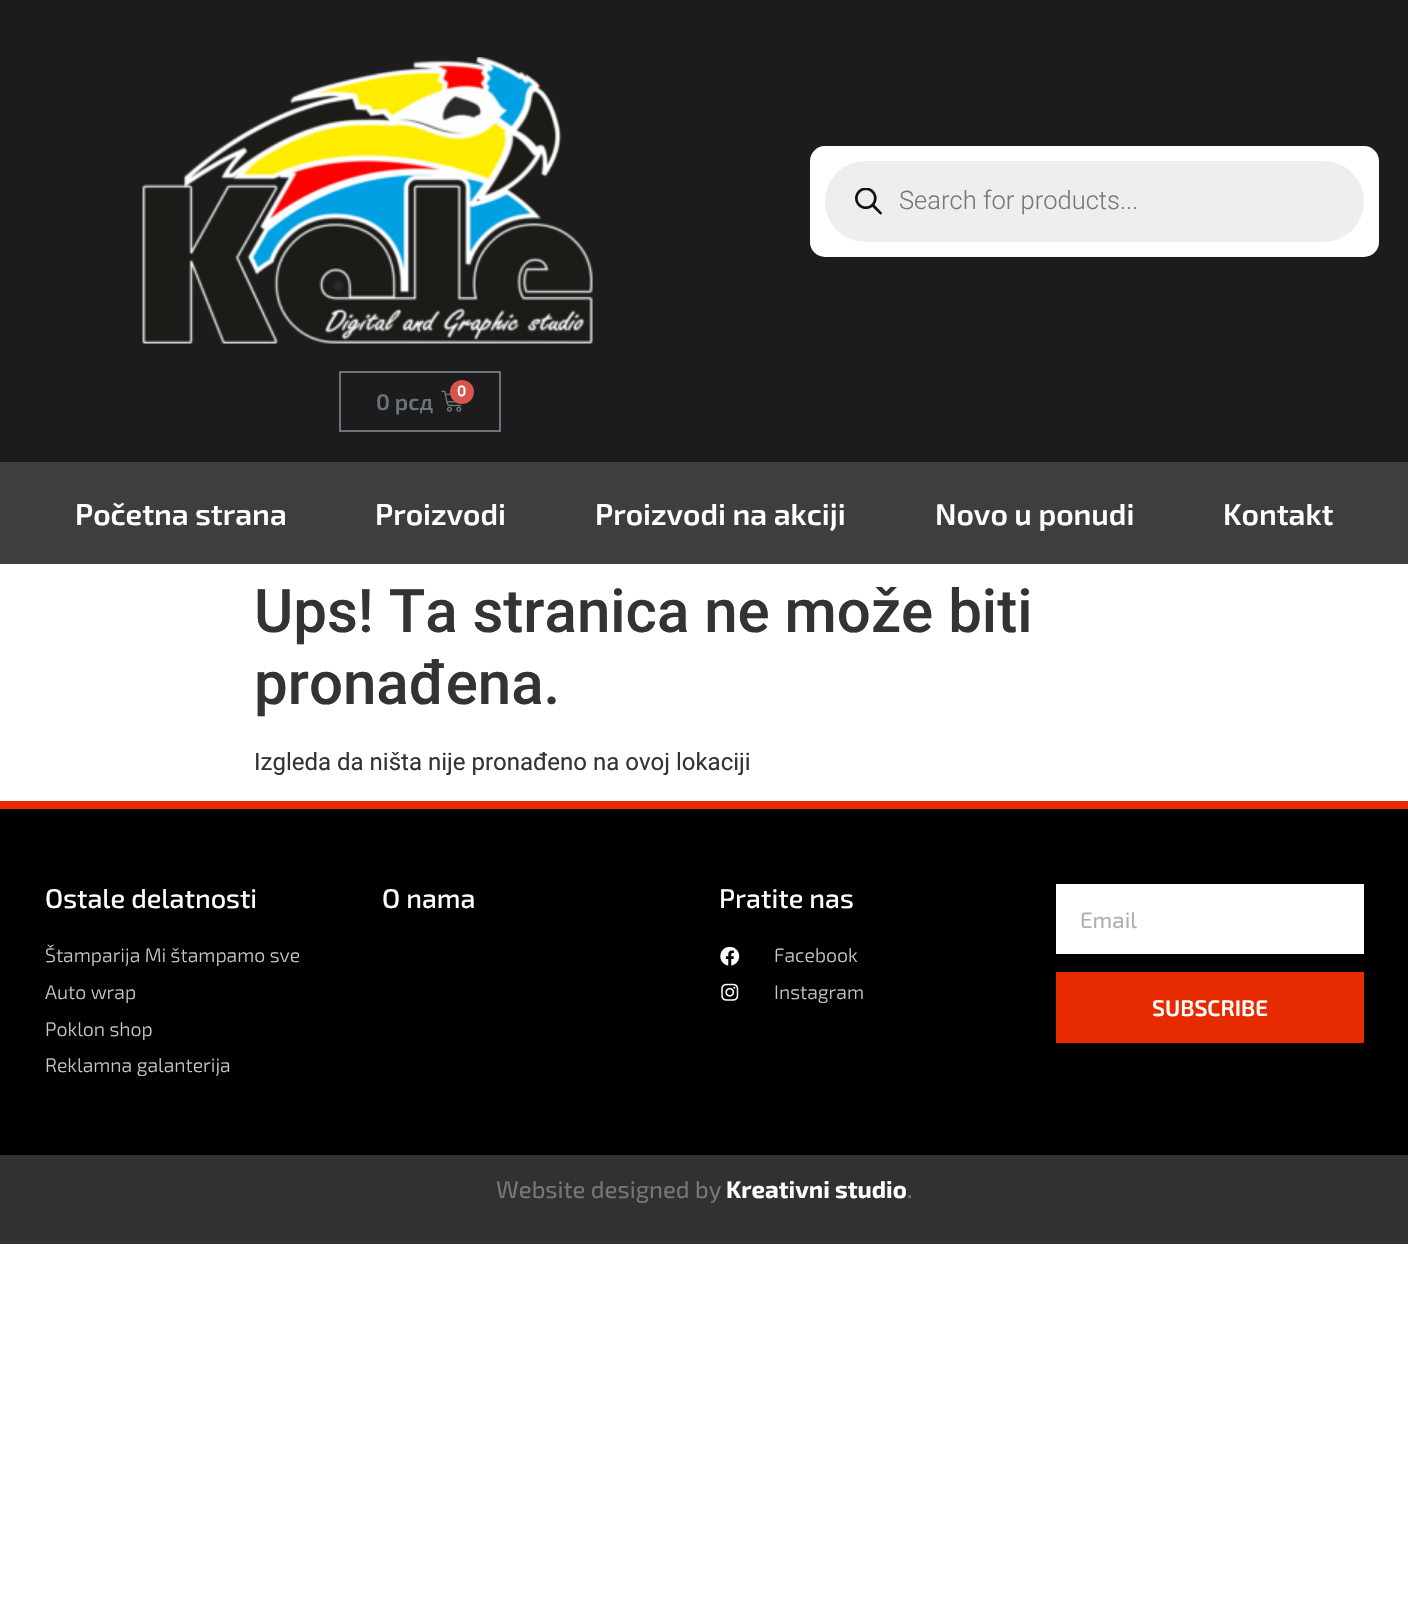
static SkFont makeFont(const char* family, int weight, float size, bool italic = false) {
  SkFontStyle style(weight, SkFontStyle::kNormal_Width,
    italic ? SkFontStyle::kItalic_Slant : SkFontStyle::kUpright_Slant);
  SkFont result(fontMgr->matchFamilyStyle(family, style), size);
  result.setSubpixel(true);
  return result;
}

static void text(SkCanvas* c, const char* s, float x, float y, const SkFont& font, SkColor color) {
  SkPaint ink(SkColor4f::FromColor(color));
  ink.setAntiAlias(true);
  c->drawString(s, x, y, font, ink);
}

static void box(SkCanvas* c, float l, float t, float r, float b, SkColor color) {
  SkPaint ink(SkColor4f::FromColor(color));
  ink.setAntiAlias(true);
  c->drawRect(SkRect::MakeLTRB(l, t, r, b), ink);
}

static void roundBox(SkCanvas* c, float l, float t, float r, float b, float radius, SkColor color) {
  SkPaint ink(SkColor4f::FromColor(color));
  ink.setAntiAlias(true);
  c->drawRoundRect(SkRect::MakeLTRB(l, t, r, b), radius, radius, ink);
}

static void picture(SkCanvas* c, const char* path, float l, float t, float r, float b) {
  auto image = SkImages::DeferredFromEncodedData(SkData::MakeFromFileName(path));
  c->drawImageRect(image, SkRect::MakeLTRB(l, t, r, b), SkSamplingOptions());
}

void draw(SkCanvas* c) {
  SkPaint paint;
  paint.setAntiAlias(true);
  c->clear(0xffffffff);
  box(c, 0, 0, 1408, 462, 0xff1c1c1c);
  picture(c, "img_01.png", 142, 57, 593, 344);
  roundBox(c, 810, 146, 1379, 257, 15, 0xffffffff);
  roundBox(c, 825, 161, 1364, 242, 40.5f, 0xffeeeeee);
  picture(c, "img_02.png", 855, 188, 882, 215);
  SkFont face1 = makeFont("Roboto", 300, 25.5f);
  text(c, "Search for products...", 899, 209, face1, 0xff777777);
  paint.setStyle(SkPaint::kStroke_Style);
  paint.setStrokeWidth(2);
  paint.setColor(0xff69727d);
  c->drawRect(SkRect::MakeLTRB(340, 372, 500, 431), paint);
  picture(c, "img_03.png", 441, 390, 462, 412);
  paint.setStyle(SkPaint::kFill_Style);
  paint.setColor(0xffd9534f);
  c->drawCircle(462, 392, 12, paint);
  SkFont face2 = makeFont("Exo 2", 600, 15);
  text(c, "0", 457, 396, face2, 0xffffffff);
  SkFont face3 = makeFont("Exo 2", 600, 22.5f);
  text(c, "0 рсд", 376, 410, face3, 0xff69727d);
  box(c, 0, 462, 1408, 564, 0xff3e3e3e);
  SkFont face4 = makeFont("Exo 2", 600, 30);
  text(c, "Početna strana", 75, 525, face4, 0xffffffff);
  text(c, "Proizvodi", 375, 525, face4, 0xffffffff);
  text(c, "Proizvodi na akciji", 595, 525, face4, 0xffffffff);
  text(c, "Novo u ponudi", 935, 525, face4, 0xffffffff);
  text(c, "Kontakt", 1223, 525, face4, 0xffffffff);
  SkFont face5 = makeFont("Roboto", 500, 60);
  text(c, "Ups! Ta stranica ne može biti", 254, 632, face5, 0xff333333);
  text(c, "pronađena.", 254, 704, face5, 0xff333333);
  SkFont face6 = makeFont("Roboto", 400, 24);
  text(c, "Izgleda da ništa nije pronađeno na ovoj lokaciji", 254, 770, face6, 0xff333333);
  box(c, 0, 809, 1408, 1155, 0xff000000);
  box(c, 0, 801, 1408, 809, 0xffe82a00);
  SkFont face7 = makeFont("Exo 2", 500, 27);
  text(c, "Ostale delatnosti", 45, 908, face7, 0xffffffff);
  SkFont face8 = makeFont("Exo 2", 300, 19.5f);
  text(c, "Štamparija Mi štampamo sve", 45, 962, face8, 0xffc9c9c9);
  text(c, "Auto wrap", 45, 999, face8, 0xffc9c9c9);
  text(c, "Poklon shop", 45, 1036, face8, 0xffc9c9c9);
  text(c, "Reklamna galanterija", 45, 1072, face8, 0xffc9c9c9);
  text(c, "O nama", 382, 908, face7, 0xffffffff);
  text(c, "Pratite nas", 719, 908, face7, 0xffffffff);
  picture(c, "img_04.png", 720, 947, 740, 966);
  text(c, "Facebook", 774, 962, face8, 0xffc9c9c9);
  picture(c, "img_05.png", 721, 983, 739, 1001);
  text(c, "Instagram", 774, 999, face8, 0xffc9c9c9);
  box(c, 1056, 884, 1364, 954, 0xffffffff);
  SkFont face9 = makeFont("Exo 2", 400, 22.5f);
  text(c, "Email", 1080, 928, face9, 0xffafafaf);
  box(c, 1056, 972, 1364, 1043, 0xffe82a00);
  text(c, "SUBSCRIBE", 1152, 1016, face3, 0xffffffff);
  box(c, 0, 1155, 1408, 1244, 0xff313131);
  SkFont face10 = makeFont("Exo 2", 400, 24);
  text(c, "Website designed by", 496, 1198, face10, 0xff777777);
  SkFont face11 = makeFont("Exo 2", 700, 24);
  text(c, "Kreativni studio", 726, 1198, face11, 0xffffffff);
  text(c, ".", 907, 1198, face10, 0xff777777);
}
